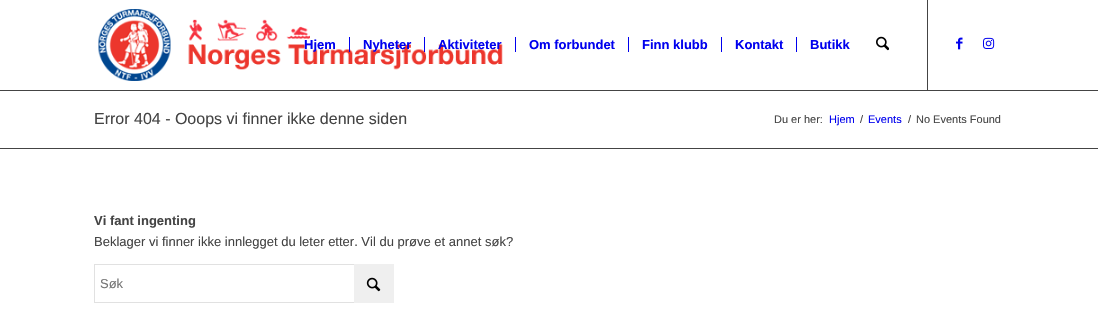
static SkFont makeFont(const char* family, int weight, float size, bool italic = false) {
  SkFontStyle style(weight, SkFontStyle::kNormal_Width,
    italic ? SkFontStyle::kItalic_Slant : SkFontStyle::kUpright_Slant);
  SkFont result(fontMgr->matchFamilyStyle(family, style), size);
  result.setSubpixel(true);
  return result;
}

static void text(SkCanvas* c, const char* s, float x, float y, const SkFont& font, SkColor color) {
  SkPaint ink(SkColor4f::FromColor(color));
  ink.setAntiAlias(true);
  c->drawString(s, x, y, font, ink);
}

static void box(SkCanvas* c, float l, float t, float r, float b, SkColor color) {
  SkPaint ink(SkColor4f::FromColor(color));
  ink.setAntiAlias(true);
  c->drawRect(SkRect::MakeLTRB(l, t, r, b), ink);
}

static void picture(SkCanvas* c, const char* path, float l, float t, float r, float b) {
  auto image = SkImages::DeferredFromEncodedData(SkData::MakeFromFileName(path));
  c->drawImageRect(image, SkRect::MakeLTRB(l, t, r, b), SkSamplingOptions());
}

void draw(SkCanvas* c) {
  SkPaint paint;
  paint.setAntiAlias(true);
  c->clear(0xffffffff);
  picture(c, "img_01.png", 98, 9, 503, 81);
  box(c, 927, 0, 928, 90, 0xff444444);
  SkFont face1 = makeFont("Liberation Sans", 700, 13);
  text(c, "Hjem", 304, 49, face1, 0xff0000ee);
  text(c, "Nyheter", 363, 49, face1, 0xff0000ee);
  box(c, 349, 37, 350, 52, 0xff0000ee);
  text(c, "Aktiviteter", 438, 49, face1, 0xff0000ee);
  box(c, 424, 37, 425, 52, 0xff0000ee);
  text(c, "Om forbundet", 529, 49, face1, 0xff0000ee);
  box(c, 515, 37, 516, 52, 0xff0000ee);
  text(c, "Finn klubb", 642, 49, face1, 0xff0000ee);
  box(c, 628, 37, 629, 52, 0xff0000ee);
  text(c, "Kontakt", 735, 49, face1, 0xff0000ee);
  box(c, 721, 37, 722, 52, 0xff0000ee);
  text(c, "Butikk", 810, 49, face1, 0xff0000ee);
  box(c, 796, 37, 797, 52, 0xff0000ee);
  picture(c, "img_02.png", 876, 36, 889, 51);
  picture(c, "img_03.png", 956, 37, 963, 50);
  picture(c, "img_04.png", 983, 37, 995, 49);
  box(c, 0, 90, 1098, 91, 0xff444444);
  SkFont face2 = makeFont("Liberation Sans", 400, 16);
  text(c, "Error 404 - Ooops vi finner ikke denne siden", 94, 124, face2, 0xff444444);
  SkFont face3 = makeFont("Liberation Sans", 400, 11);
  text(c, "Du er her:", 774, 123, face3, 0xff444444);
  text(c, "Hjem", 829, 123, face3, 0xff0000ee);
  text(c, "/", 860, 123, face3, 0xff444444);
  text(c, "Events", 868, 123, face3, 0xff0000ee);
  text(c, "/", 908, 123, face3, 0xff444444);
  text(c, "No Events Found", 916, 123, face3, 0xff444444);
  box(c, 0, 148, 1098, 149, 0xff444444);
  text(c, "Vi fant ingenting", 94, 225, face1, 0xff444444);
  SkFont face4 = makeFont("Liberation Sans", 400, 13);
  text(c, "Beklager vi finner ikke innlegget du leter etter. Vil du prøve et annet søk?", 94, 246, face4, 0xff444444);
  paint.setStyle(SkPaint::kStroke_Style);
  paint.setStrokeWidth(1);
  paint.setColor(0xffe1e1e1);
  c->drawRect(SkRect::MakeLTRB(94.5f, 264.5f, 393.5f, 302.5f), paint);
  box(c, 354, 264, 394, 303, 0xffefefef);
  text(c, "Søk", 100, 288, face4, 0xff757575);
  picture(c, "img_05.png", 366, 277, 381, 292);
}
